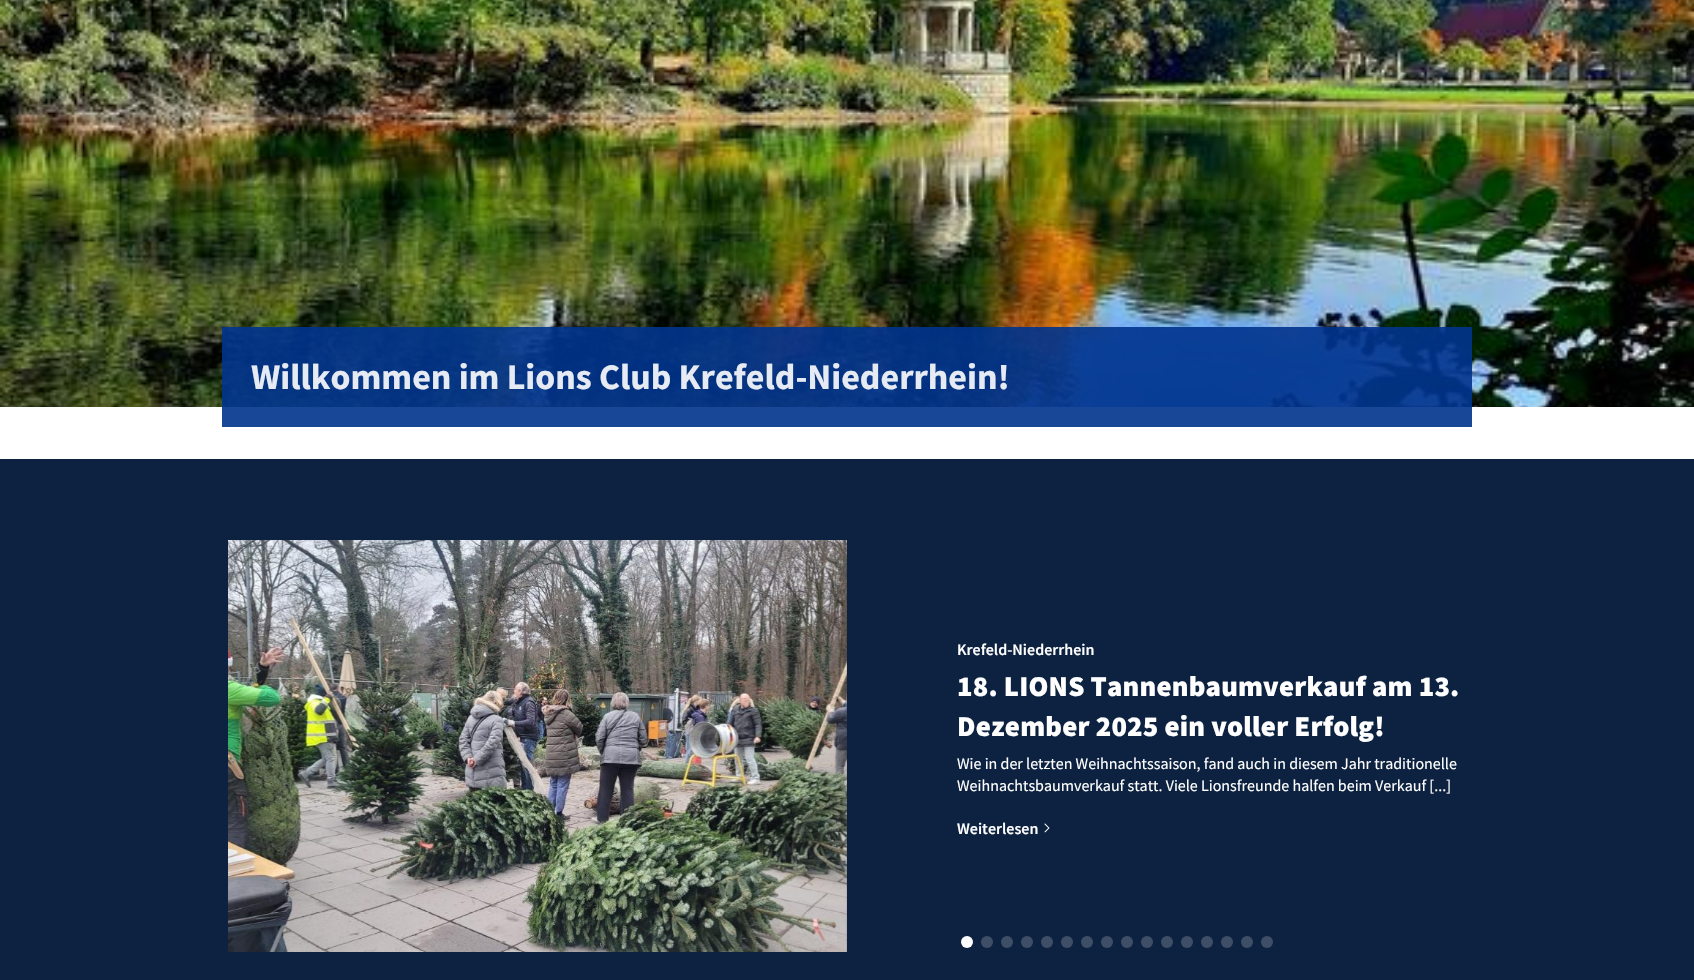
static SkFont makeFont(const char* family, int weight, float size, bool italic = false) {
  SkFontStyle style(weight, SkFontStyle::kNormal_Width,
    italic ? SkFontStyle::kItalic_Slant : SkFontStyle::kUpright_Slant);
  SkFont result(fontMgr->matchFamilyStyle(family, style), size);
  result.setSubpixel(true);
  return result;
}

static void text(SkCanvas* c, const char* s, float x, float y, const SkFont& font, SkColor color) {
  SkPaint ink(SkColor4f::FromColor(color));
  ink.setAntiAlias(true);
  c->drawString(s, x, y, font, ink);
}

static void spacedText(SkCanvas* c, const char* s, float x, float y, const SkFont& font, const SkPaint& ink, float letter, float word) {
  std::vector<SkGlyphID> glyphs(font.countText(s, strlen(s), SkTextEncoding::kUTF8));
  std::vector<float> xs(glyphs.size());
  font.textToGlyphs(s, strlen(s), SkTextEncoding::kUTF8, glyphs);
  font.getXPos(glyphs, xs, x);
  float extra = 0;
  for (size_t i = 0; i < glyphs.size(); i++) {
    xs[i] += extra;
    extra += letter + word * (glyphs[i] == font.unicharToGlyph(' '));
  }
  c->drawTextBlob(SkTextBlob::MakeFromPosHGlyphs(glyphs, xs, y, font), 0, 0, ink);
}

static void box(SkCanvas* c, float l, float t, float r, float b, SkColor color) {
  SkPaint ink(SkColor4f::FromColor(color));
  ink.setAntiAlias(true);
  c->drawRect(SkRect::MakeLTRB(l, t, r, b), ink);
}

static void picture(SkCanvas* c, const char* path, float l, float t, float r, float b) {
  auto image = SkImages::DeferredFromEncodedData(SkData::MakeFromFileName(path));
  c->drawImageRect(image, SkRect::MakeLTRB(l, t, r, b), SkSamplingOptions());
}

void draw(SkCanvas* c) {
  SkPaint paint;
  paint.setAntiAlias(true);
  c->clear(0xffffffff);
  picture(c, "img_01.png", 0, 0, 1694, 407);
  box(c, 222, 327, 1472, 427, 0xe600338d);
  SkFont face1 = makeFont("Source Sans Pro", 700, 36);
  text(c, "Willkommen im Lions Club Krefeld-Niederrhein!", 251, 389, face1, 0xffe6ebf3);
  box(c, 0, 459, 1694, 980, 0xff0d2240);
  picture(c, "img_02.png", 228, 540, 847, 952);
  SkFont face2 = makeFont("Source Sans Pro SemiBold", 600, 16);
  text(c, "Krefeld-Niederrhein", 957, 655, face2, 0xffffffff);
  SkFont face3 = makeFont("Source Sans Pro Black", 900, 28.75f);
  paint.setColor(0xffffffff);
  spacedText(c, "18. LIONS Tannenbaumverkauf am 13.", 957, 696, face3, paint, 0.2f, 0);
  spacedText(c, "Dezember 2025 ein voller Erfolg!", 957, 736, face3, paint, 0.2f, 0);
  SkFont face4 = makeFont("Source Sans Pro", 400, 16);
  text(c, "Wie in der letzten Weihnachtssaison, fand auch in diesem Jahr traditionelle", 957, 769, face4, 0xffffffff);
  text(c, "Weihnachtsbaumverkauf statt. Viele Lionsfreunde halfen beim Verkauf [...]", 957, 791, face4, 0xffffffff);
  text(c, "Weiterlesen", 957, 834, face2, 0xffffffff);
  picture(c, "img_03.png", 1044, 823, 1050, 833);
  c->drawCircle(967, 942, 6, paint);
  paint.setColor(0xff3d4e66);
  c->drawCircle(987, 942, 6, paint);
  c->drawCircle(1007, 942, 6, paint);
  c->drawCircle(1027, 942, 6, paint);
  c->drawCircle(1047, 942, 6, paint);
  c->drawCircle(1067, 942, 6, paint);
  c->drawCircle(1087, 942, 6, paint);
  c->drawCircle(1107, 942, 6, paint);
  c->drawCircle(1127, 942, 6, paint);
  c->drawCircle(1147, 942, 6, paint);
  c->drawCircle(1167, 942, 6, paint);
  c->drawCircle(1187, 942, 6, paint);
  c->drawCircle(1207, 942, 6, paint);
  c->drawCircle(1227, 942, 6, paint);
  c->drawCircle(1247, 942, 6, paint);
  c->drawCircle(1267, 942, 6, paint);
}
